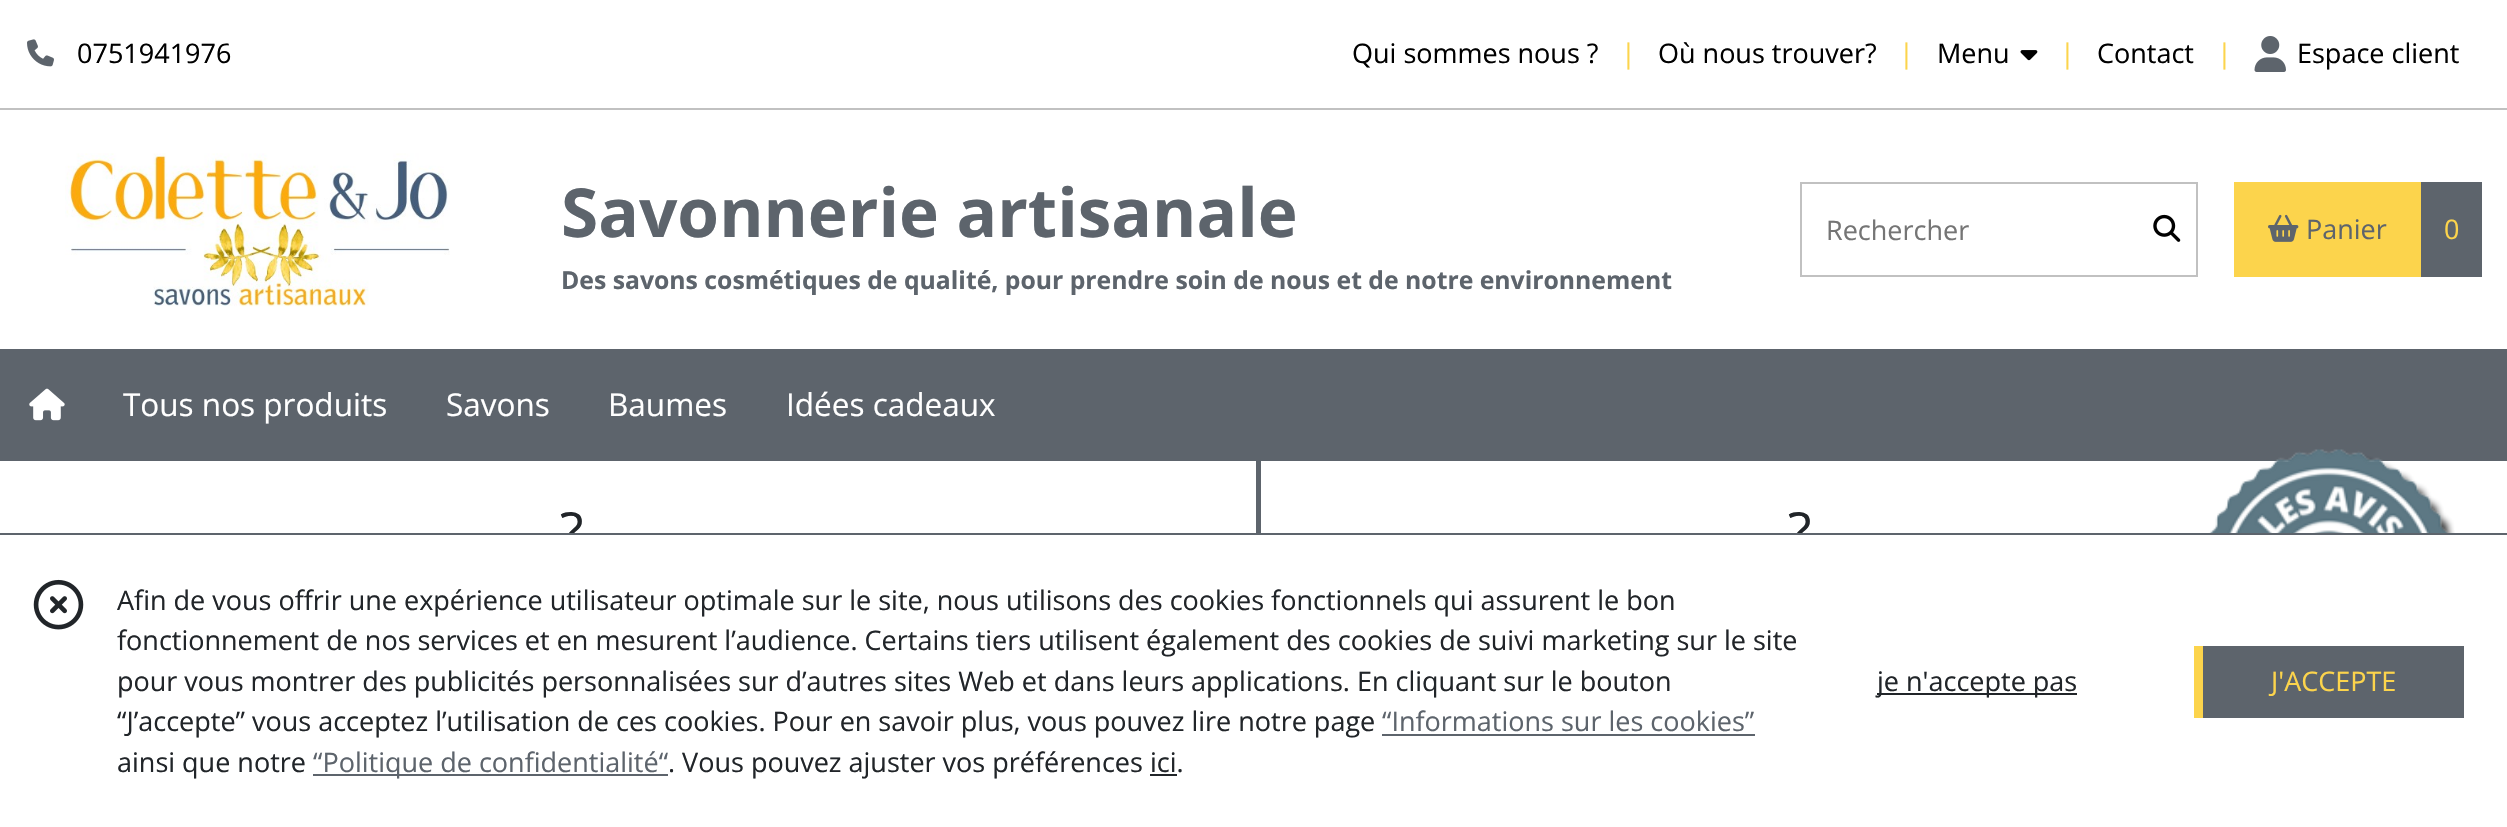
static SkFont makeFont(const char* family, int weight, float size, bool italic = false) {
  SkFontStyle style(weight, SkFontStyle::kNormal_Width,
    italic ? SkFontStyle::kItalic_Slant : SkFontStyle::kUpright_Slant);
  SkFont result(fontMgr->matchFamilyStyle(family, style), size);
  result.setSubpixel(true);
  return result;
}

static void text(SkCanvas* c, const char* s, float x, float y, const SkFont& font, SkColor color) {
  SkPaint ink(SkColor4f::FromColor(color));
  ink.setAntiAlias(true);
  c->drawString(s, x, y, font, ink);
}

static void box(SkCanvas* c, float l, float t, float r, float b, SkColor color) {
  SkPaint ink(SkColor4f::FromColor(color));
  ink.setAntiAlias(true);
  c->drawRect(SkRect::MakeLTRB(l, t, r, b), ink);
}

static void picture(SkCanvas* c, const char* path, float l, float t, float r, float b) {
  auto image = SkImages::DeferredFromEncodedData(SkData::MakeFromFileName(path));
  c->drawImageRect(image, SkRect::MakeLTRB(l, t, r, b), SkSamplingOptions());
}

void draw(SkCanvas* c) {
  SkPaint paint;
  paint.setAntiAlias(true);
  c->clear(0xffffffff);
  box(c, 0, 108, 2507, 110, 0xffc1c1c1);
  picture(c, "img_01.png", 27, 39, 54, 67);
  SkFont face1 = makeFont("Open Sans", 400, 27);
  text(c, "0751941976", 77, 63, face1, 0xff000000);
  text(c, "Qui sommes nous ?", 1352, 63, face1, 0xff000000);
  text(c, "|", 1621, 63, face1, 0xfffcd44c);
  text(c, "Où nous trouver?", 1658, 63, face1, 0xff000000);
  text(c, "|", 1899, 63, face1, 0xfffcd44c);
  text(c, "Menu", 1937, 63, face1, 0xff000000);
  picture(c, "img_02.png", 2020, 50, 2038, 61);
  text(c, "|", 2060, 63, face1, 0xfffcd44c);
  text(c, "Contact", 2097, 63, face1, 0xff000000);
  text(c, "|", 2217, 63, face1, 0xfffcd44c);
  picture(c, "img_03.png", 2254, 36, 2286, 72);
  text(c, "Espace client", 2297, 63, face1, 0xff000000);
  picture(c, "img_04.png", 65, 153, 450, 307);
  SkFont face2 = makeFont("Open Sans", 700, 67.5f);
  text(c, "Savonnerie artisanale", 561, 237, face2, 0xff5d646c);
  SkFont face3 = makeFont("Open Sans", 700, 24.75f);
  text(c, "Des savons cosmétiques de qualité, pour prendre soin de nous et de notre environnement", 561, 289, face3, 0xff5d646c);
  paint.setStyle(SkPaint::kStroke_Style);
  paint.setStrokeWidth(2);
  paint.setColor(0xffc1c1c1);
  c->drawRect(SkRect::MakeLTRB(1801, 183, 2197, 276), paint);
  text(c, "Rechercher", 1826, 240, face1, 0xff757575);
  picture(c, "img_05.png", 2153, 214, 2181, 242);
  box(c, 2234, 182, 2421, 277, 0xfffcd44c);
  picture(c, "img_06.png", 2268, 214, 2299, 242);
  text(c, "Panier", 2306, 239, face1, 0xff5d646c);
  box(c, 2421, 182, 2482, 277, 0xff5d646c);
  text(c, "0", 2444, 239, face1, 0xfffcd44c);
  box(c, 0, 349, 2507, 461, 0xff5d646c);
  picture(c, "img_07.png", 29, 388, 65, 421);
  SkFont face4 = makeFont("Open Sans", 400, 31.5f);
  text(c, "Tous nos produits", 123, 416, face4, 0xffffffff);
  text(c, "Savons", 446, 416, face4, 0xffffffff);
  text(c, "Baumes", 608, 416, face4, 0xffffffff);
  text(c, "Idées cadeaux", 786, 416, face4, 0xffffffff);
  SkFont face5 = makeFont("Open Sans", 400, 54);
  text(c, "?", 560, 551, face5, 0xff212529);
  box(c, 1256, 461, 1261, 533, 0xff5d646c);
  text(c, "?", 1788, 551, face5, 0xff212529);
  picture(c, "img_08.png", 2208, 449, 2455, 533);
  box(c, 566, 535, 1801, 552, 0xffffffff);
  box(c, 0, 533, 2507, 535, 0xff5d646c);
  picture(c, "img_09.png", 33, 579, 84, 630);
  text(c, "Afin de vous offrir une expérience utilisateur optimale sur le site, nous utilisons des cookies fonctionnels qui assurent le bon", 117, 610, face1, 0xff212529);
  text(c, "fonctionnement de nos services et en mesurent l’audience. Certains tiers utilisent également des cookies de suivi marketing sur le site", 117, 650, face1, 0xff212529);
  text(c, "pour vous montrer des publicités personnalisées sur d’autres sites Web et dans leurs applications. En cliquant sur le bouton", 117, 691, face1, 0xff212529);
  text(c, "“J’accepte” vous acceptez l’utilisation de ces cookies. Pour en savoir plus, vous pouvez lire notre page", 117, 731, face1, 0xff212529);
  text(c, "“Informations sur les cookies”", 1382, 731, face1, 0xff5d646c);
  box(c, 1382, 734, 1755, 736, 0xff5d646c);
  text(c, "ainsi que notre", 117, 772, face1, 0xff212529);
  box(c, 313, 774, 668, 776, 0xff5d646c);
  text(c, "“Politique de confidentialité“", 313, 772, face1, 0xff5d646c);
  text(c, ". Vous pouvez ajuster vos préférences ici.", 668, 772, face1, 0xff212529);
  box(c, 1150, 774, 1177, 776, 0xff212529);
  box(c, 1877, 693, 2077, 695, 0xff212529);
  text(c, "je n'accepte pas", 1877, 691, face1, 0xff212529);
  box(c, 2203, 646, 2464, 718, 0xff5d646c);
  box(c, 2194, 646, 2203, 718, 0xfffcd44c);
  text(c, "J'ACCEPTE", 2271, 691, face1, 0xfffcd44c);
}
